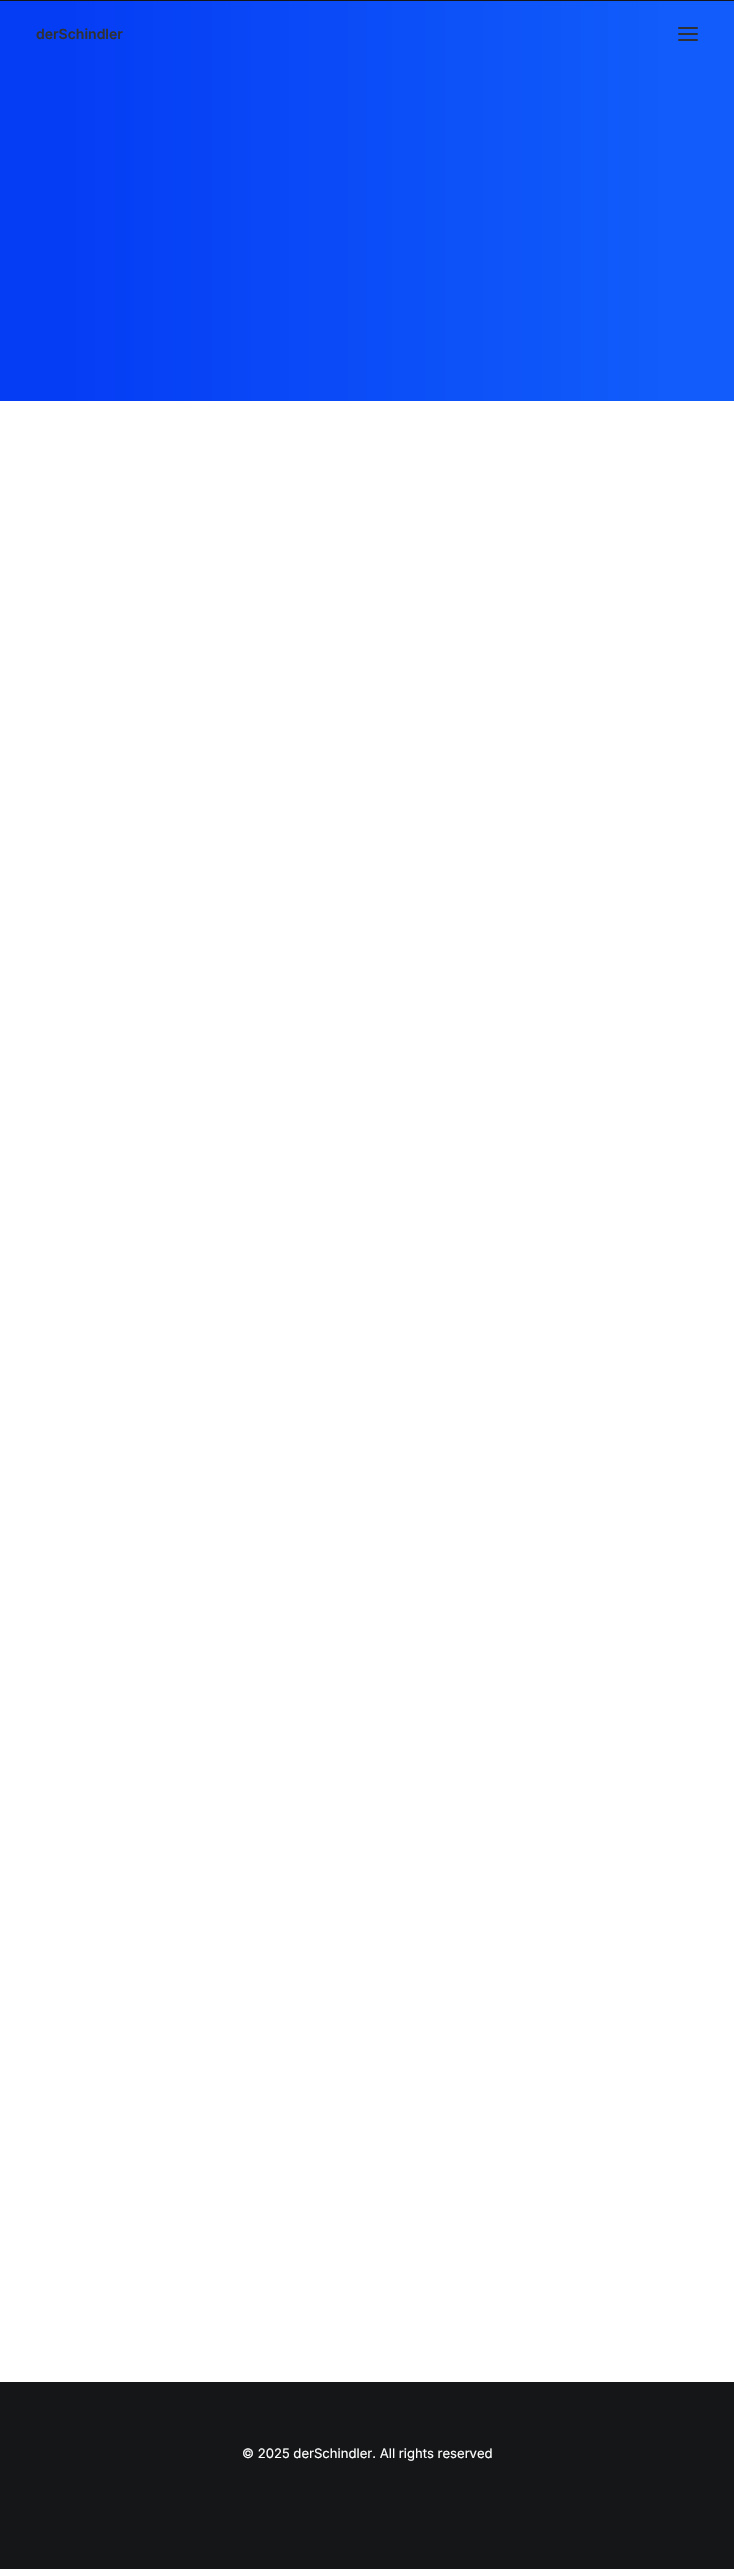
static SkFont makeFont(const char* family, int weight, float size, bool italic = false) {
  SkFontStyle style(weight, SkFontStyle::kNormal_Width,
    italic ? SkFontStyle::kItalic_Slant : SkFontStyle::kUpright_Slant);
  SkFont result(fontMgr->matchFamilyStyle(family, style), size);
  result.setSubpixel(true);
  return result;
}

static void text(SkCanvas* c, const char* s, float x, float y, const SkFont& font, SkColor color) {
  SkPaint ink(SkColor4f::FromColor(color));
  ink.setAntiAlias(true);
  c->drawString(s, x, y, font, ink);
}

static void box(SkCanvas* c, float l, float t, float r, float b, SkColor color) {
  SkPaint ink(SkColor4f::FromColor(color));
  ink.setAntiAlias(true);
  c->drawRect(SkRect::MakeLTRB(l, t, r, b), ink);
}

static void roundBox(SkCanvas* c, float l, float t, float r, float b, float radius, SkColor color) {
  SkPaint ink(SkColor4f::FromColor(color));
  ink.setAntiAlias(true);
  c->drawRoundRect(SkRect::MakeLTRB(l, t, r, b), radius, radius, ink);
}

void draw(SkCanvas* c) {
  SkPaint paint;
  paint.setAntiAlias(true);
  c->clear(0xff141618);
  {
    const SkColor colors[] = {0xff115cfa, 0xff053df5};
    const float stops[] = {0.09f, 0.91f};
    const SkPoint ends[] = {{734, 201}, {0, 201}};
    paint.setShader(SkGradientShader::MakeLinear(ends, colors, stops, 2, SkTileMode::kClamp));
    paint.setAlpha(255);
  }
  c->drawRect(SkRect::MakeLTRB(0, 1, 734, 401), paint);
  SkFont face1 = makeFont("Inter", 600, 14);
  text(c, "derSchindler", 36, 39, face1, 0xff303133);
  roundBox(c, 678, 33, 698, 35, 1, 0xff303133);
  roundBox(c, 678, 27, 698, 29, 1, 0xff303133);
  roundBox(c, 678, 39, 698, 41, 1, 0xff303133);
  box(c, 0, 401, 734, 2382, 0xffffffff);
  SkFont face2 = makeFont("Inter", 400, 13.1f);
  text(c, "© 2025 derSchindler. All rights reserved", 242, 2458, face2, 0xffffffff);
}
